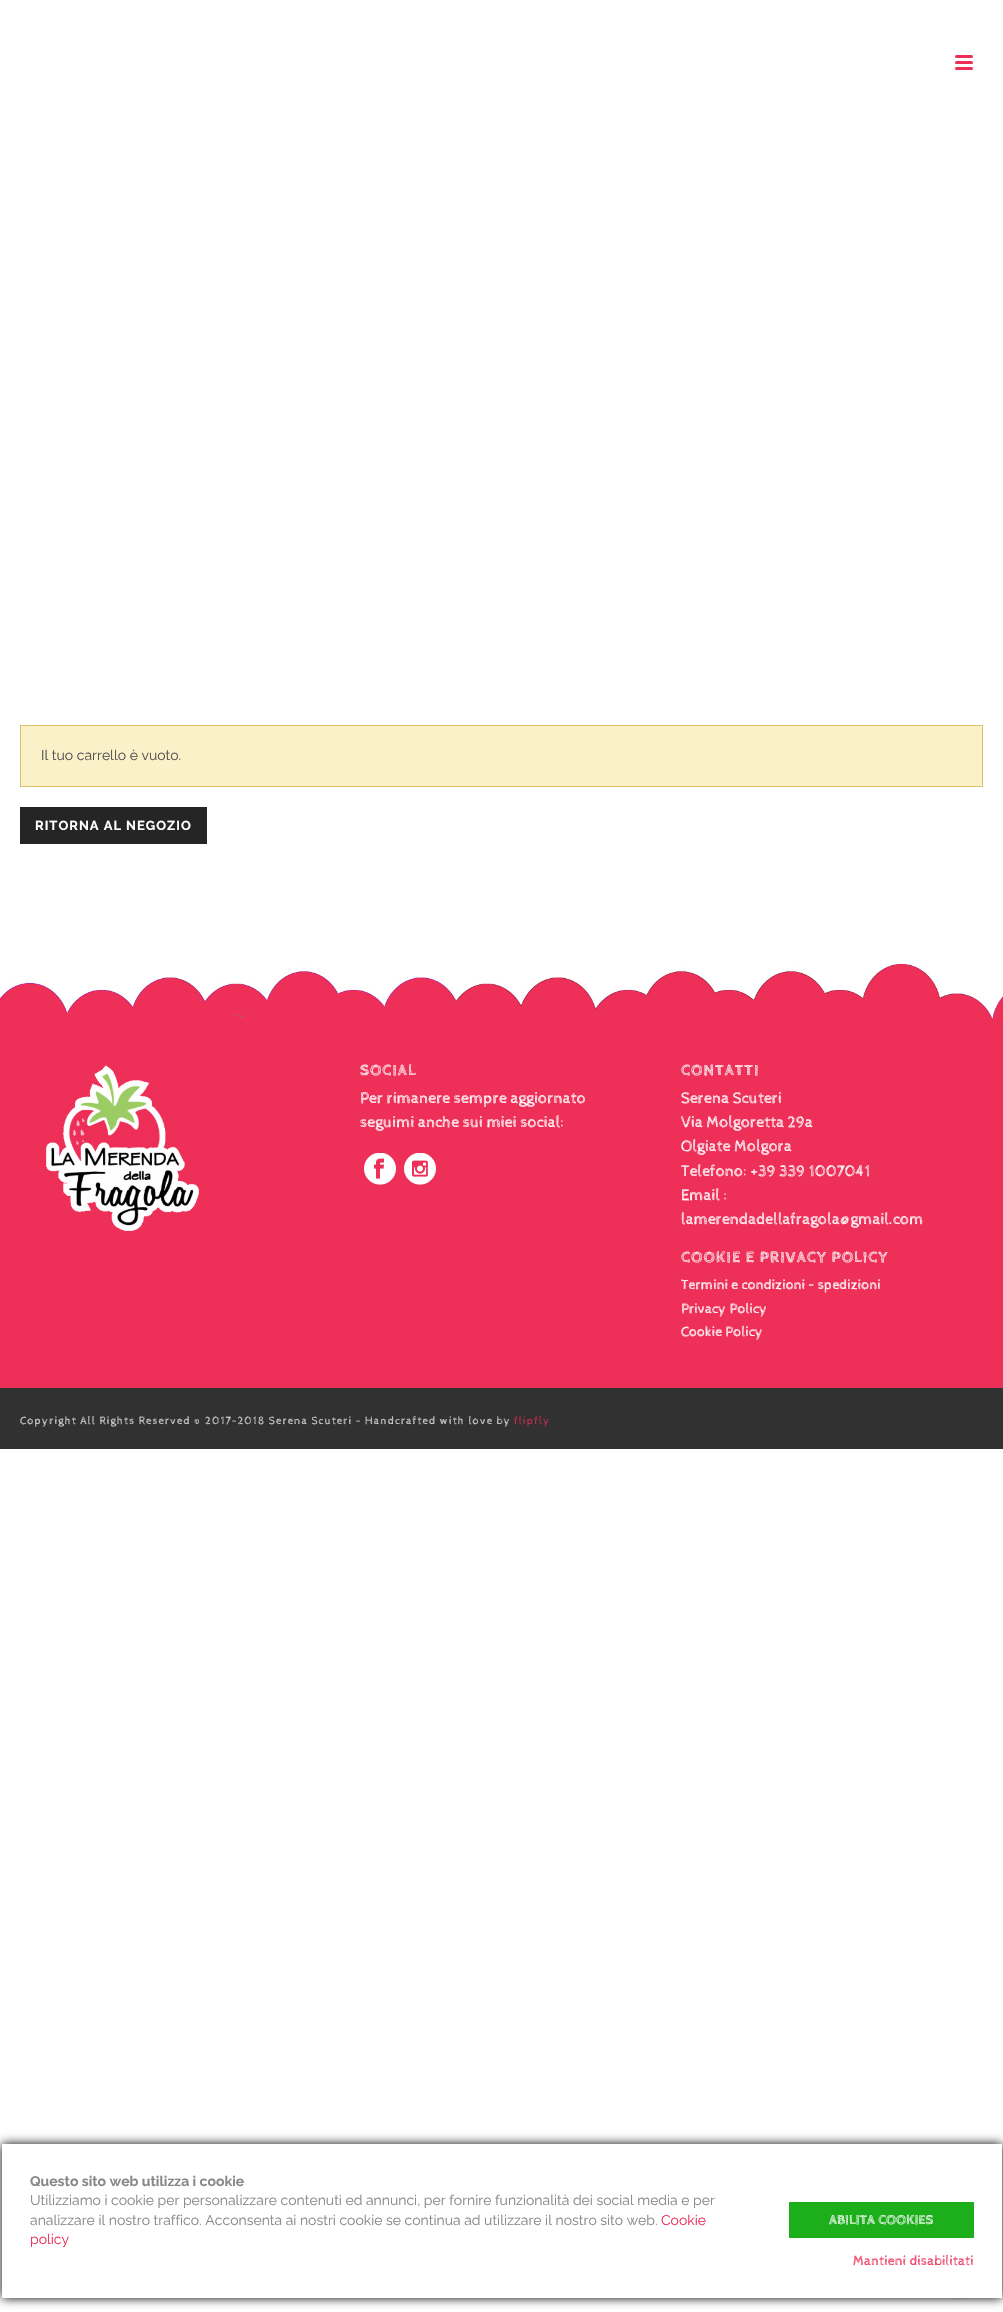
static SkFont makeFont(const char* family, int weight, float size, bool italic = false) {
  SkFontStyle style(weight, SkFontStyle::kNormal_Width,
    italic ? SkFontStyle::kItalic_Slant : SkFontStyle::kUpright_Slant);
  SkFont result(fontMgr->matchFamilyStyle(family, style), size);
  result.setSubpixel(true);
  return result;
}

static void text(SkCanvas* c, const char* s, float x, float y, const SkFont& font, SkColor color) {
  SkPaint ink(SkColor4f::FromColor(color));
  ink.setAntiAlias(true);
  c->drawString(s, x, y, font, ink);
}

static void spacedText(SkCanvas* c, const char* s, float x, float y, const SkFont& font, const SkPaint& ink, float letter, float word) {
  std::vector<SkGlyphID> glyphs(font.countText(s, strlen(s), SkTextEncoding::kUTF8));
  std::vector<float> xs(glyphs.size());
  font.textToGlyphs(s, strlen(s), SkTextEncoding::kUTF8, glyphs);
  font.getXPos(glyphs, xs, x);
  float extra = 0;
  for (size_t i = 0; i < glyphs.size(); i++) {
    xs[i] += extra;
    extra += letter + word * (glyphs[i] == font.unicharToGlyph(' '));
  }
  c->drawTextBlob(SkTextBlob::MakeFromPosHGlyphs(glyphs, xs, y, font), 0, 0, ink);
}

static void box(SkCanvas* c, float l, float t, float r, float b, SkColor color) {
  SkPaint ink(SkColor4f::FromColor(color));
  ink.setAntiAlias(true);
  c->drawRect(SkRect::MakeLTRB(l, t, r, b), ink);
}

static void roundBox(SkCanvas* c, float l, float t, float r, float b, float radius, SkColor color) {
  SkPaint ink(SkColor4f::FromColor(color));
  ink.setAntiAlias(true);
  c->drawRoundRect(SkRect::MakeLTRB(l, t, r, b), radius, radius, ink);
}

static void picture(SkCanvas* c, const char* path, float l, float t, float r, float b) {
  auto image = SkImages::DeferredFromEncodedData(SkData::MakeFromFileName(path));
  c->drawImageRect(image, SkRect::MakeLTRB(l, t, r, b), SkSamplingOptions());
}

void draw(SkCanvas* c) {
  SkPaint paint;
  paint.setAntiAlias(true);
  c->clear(0xffffffff);
  roundBox(c, 955, 55, 973, 58, 1.5f, 0xffee2f58);
  roundBox(c, 955, 61, 973, 64, 1.5f, 0xffee2f58);
  roundBox(c, 955, 67, 973, 70, 1.5f, 0xffee2f58);
  paint.setColor(0xfffbf1c8);
  c->drawRect(SkRect::MakeLTRB(20.5f, 725.5f, 982.5f, 786.5f), paint);
  paint.setStyle(SkPaint::kStroke_Style);
  paint.setStrokeWidth(1);
  paint.setColor(0xffe0c069);
  c->drawRect(SkRect::MakeLTRB(20.5f, 725.5f, 982.5f, 786.5f), paint);
  SkFont face1 = makeFont("Raleway", 400, 14);
  text(c, "Il tuo carrello è vuoto.", 41, 760, face1, 0xff515151);
  box(c, 20, 807, 207, 844, 0xff252525);
  SkFont face2 = makeFont("Raleway", 700, 13);
  paint.setStyle(SkPaint::kFill_Style);
  paint.setColor(0xffffffff);
  spacedText(c, "RITORNA AL NEGOZIO", 35, 830, face2, paint, 1, 0);
  picture(c, "img_01.png", 0, 964, 1003, 1388);
  picture(c, "img_02.png", 46, 1065, 199, 1231);
  SkFont face3 = makeFont("Cabin Sketch", 700, 16);
  spacedText(c, "SOCIAL", 360, 1075, face3, paint, 1, 0);
  SkFont face4 = makeFont("Cabin Sketch", 400, 16);
  text(c, "Per rimanere sempre aggiornato", 360, 1103, face4, 0xffffffff);
  text(c, "seguimi anche sui miei social:", 360, 1127, face4, 0xffffffff);
  picture(c, "img_03.png", 364, 1153, 396, 1185);
  picture(c, "img_04.png", 404, 1153, 436, 1185);
  spacedText(c, "CONTATTI", 681, 1075, face3, paint, 1, 0);
  text(c, "Serena Scuteri", 681, 1103, face4, 0xffffffff);
  text(c, "Via Molgoretta 29a", 681, 1127, face4, 0xffffffff);
  text(c, "Olgiate Molgora", 681, 1151, face4, 0xffffffff);
  text(c, "Telefono: +39 339 1007041", 681, 1176, face4, 0xffffffff);
  text(c, "Email :", 681, 1200, face4, 0xffffffff);
  text(c, "lamerendadellafragola@gmail.com", 681, 1224, face4, 0xffffffff);
  spacedText(c, "COOKIE E PRIVACY POLICY", 681, 1262, face3, paint, 1, 0);
  SkFont face5 = makeFont("Cabin Sketch", 400, 14);
  text(c, "Termini e condizioni – spedizioni", 681, 1289, face5, 0xffffffff);
  text(c, "Privacy Policy", 681, 1313, face5, 0xffffffff);
  text(c, "Cookie Policy", 681, 1336, face5, 0xffffffff);
  box(c, 0, 1388, 1003, 1449, 0xff313131);
  SkFont face6 = makeFont("Cabin Sketch", 400, 11);
  paint.setColor(0xffd6d6d6);
  spacedText(c, "Copyright All Rights Reserved © 2017-2018 Serena Scuteri - Handcrafted with love by", 20, 1424, face6, paint, 1, 0);
  paint.setColor(0xffc82f50);
  spacedText(c, "flipfly", 514, 1424, face6, paint, 1, 0);
  paint.setColor(0xff000000);
  paint.setMaskFilter(SkMaskFilter::MakeBlur(kNormal_SkBlurStyle, 5));
  c->drawRect(SkRect::MakeLTRB(2, 2144, 1002, 2298), paint);
  paint.setMaskFilter(nullptr);
  paint.setColor(0x33000000);
  paint.setMaskFilter(SkMaskFilter::MakeBlur(kNormal_SkBlurStyle, 1.5f));
  c->drawRoundRect(SkRect::MakeLTRB(929, 2238, 989, 2298), 30, 30, paint);
  paint.setMaskFilter(nullptr);
  box(c, 2, 2144, 1002, 2298, 0xffffffff);
  SkFont face7 = makeFont("Raleway", 700, 14);
  text(c, "Questo sito web utilizza i cookie", 30, 2186, face7, 0xff888888);
  text(c, "Utilizziamo i cookie per personalizzare contenuti ed annunci, per fornire funzionalità dei social media e per", 30, 2205, face1, 0xff888888);
  text(c, "analizzare il nostro traffico. Acconsenta ai nostri cookie se continua ad utilizzare il nostro sito web.", 30, 2225, face1, 0xff888888);
  text(c, "Cookie", 661, 2225, face1, 0xffee2f58);
  text(c, "policy", 30, 2244, face1, 0xffee2f58);
  box(c, 789, 2202, 974, 2238, 0xff1dae1c);
  SkFont face8 = makeFont("Cabin Sketch", 700, 14);
  text(c, "ABILITA COOKIES", 829, 2224, face8, 0xffffffff);
  text(c, "Mantieni disabilitati", 853, 2265, face5, 0xffee2f58);
}
